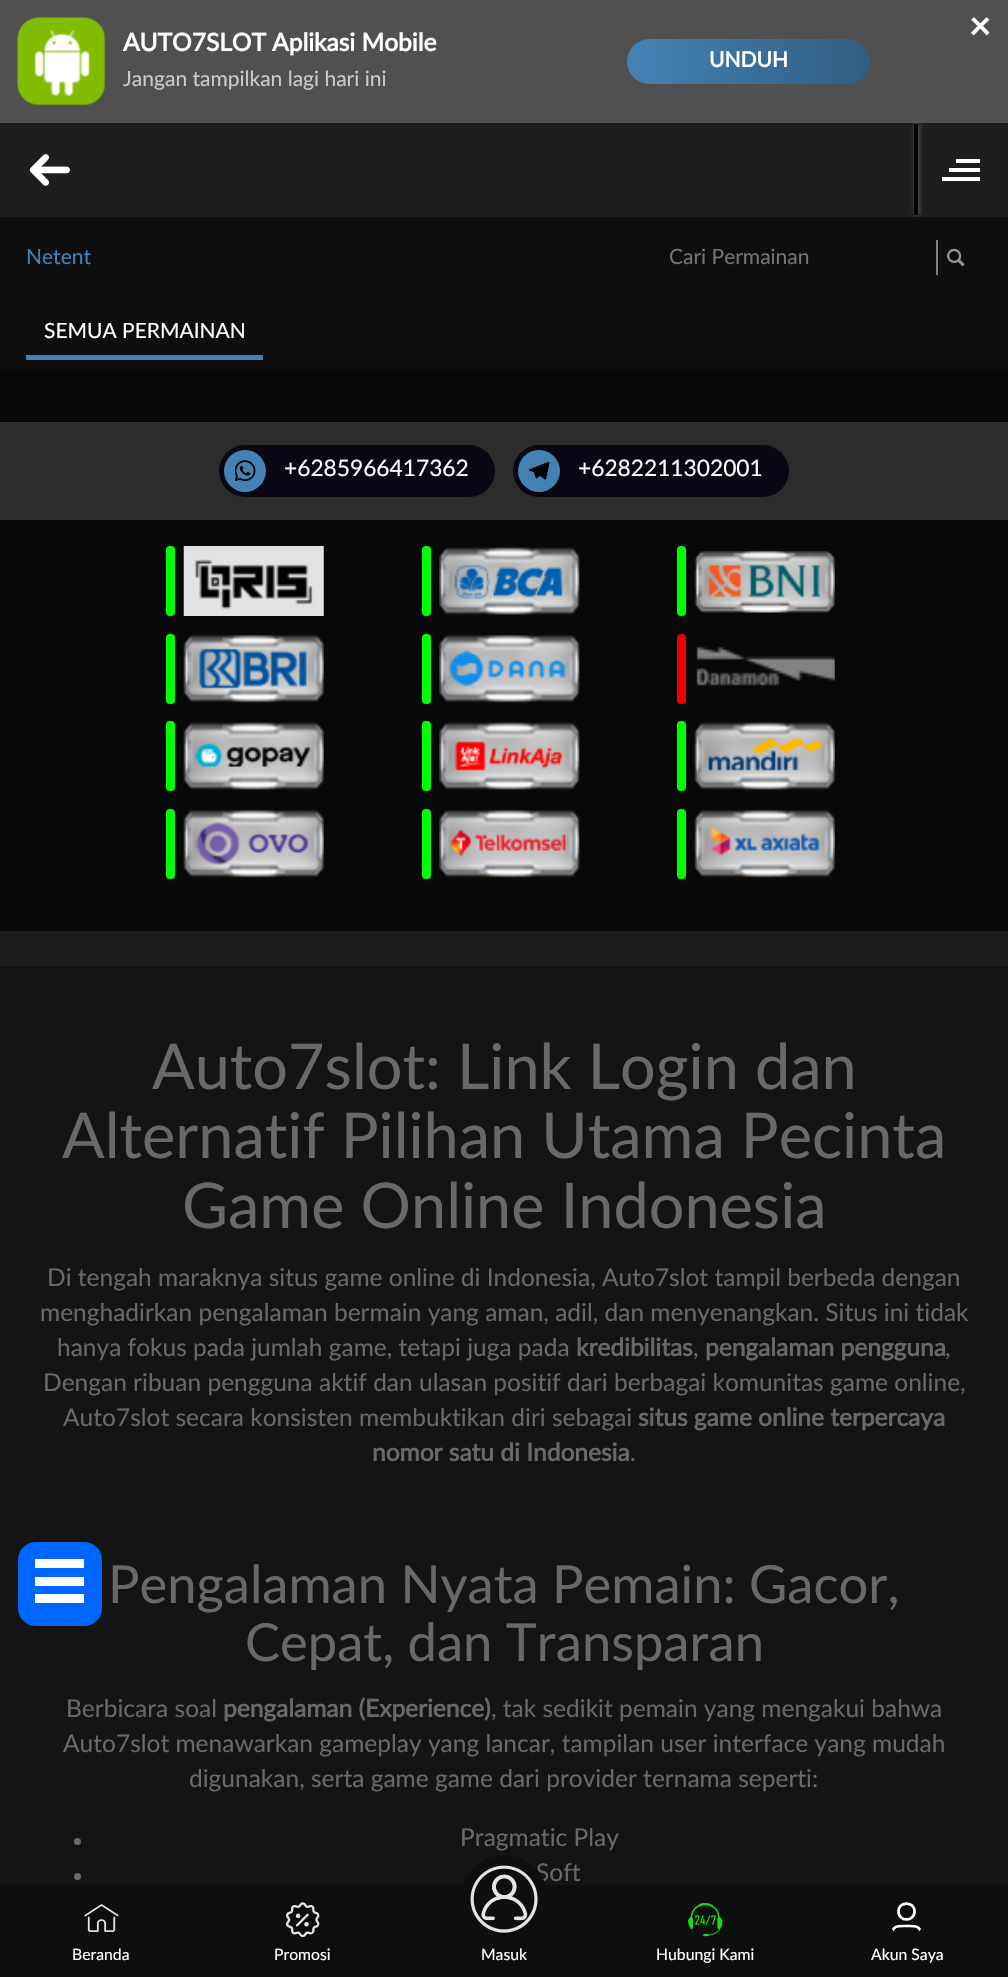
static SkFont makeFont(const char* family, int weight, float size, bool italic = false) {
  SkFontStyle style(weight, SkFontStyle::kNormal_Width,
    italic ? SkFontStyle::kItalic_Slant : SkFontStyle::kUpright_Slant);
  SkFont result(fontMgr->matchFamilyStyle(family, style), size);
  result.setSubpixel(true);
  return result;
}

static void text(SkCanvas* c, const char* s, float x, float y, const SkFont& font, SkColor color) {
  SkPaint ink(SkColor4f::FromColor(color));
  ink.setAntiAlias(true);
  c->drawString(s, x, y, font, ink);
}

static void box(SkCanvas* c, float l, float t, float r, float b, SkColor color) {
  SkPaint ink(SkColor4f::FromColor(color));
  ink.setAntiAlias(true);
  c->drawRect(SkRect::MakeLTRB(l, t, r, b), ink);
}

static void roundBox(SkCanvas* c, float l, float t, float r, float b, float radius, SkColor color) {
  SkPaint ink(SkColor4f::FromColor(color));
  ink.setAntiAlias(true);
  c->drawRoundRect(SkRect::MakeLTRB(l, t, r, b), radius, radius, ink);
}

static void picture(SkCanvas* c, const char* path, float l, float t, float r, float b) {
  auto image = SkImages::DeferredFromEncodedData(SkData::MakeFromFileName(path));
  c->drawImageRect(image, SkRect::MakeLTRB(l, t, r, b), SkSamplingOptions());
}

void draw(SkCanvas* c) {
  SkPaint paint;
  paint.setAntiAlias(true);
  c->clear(0xff080808);
  box(c, 0, 0, 1008, 123, 0xff505050);
  picture(c, "img_01.png", 17, 17, 106, 106);
  SkFont face1 = makeFont("Lato", 700, 37);
  text(c, "×", 969, 39, face1, 0xffffffff);
  SkFont face2 = makeFont("Lato", 700, 24.5f);
  text(c, "AUTO7SLOT Aplikasi Mobile", 123, 51, face2, 0xffffffff);
  SkFont face3 = makeFont("Lato", 400, 21);
  text(c, "Jangan tampilkan lagi hari ini", 123, 86, face3, 0xffcbcbcb);
  {
    const SkColor colors[] = {0xff4582b4, 0xff305d82};
    const float stops[] = {0, 1};
    const SkPoint ends[] = {{627, 61}, {870, 61}};
    paint.setShader(SkGradientShader::MakeLinear(ends, colors, stops, 2, SkTileMode::kClamp));
    paint.setAlpha(255);
  }
  c->drawRoundRect(SkRect::MakeLTRB(627, 39, 870, 84), 22.5f, 22.5f, paint);
  SkFont face4 = makeFont("Lato", 700, 21);
  text(c, "UNDUH", 709, 67, face4, 0xffffffff);
  box(c, 0, 123, 1008, 217, 0xff1e1e1e);
  picture(c, "img_02.png", 29, 154, 70, 186);
  box(c, 0, 217, 1008, 369, 0xff0e0e0e);
  c->save();
  c->clipPath(SkPathBuilder(SkPathFillType::kEvenOdd).moveTo(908, 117).lineTo(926, 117).lineTo(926, 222).lineTo(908, 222).close().moveTo(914, 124).lineTo(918, 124).lineTo(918, 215).lineTo(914, 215).close().detach(), true);
  paint.setShader(nullptr);
  paint.setColor(0x4dffffff);
  paint.setMaskFilter(SkMaskFilter::MakeBlur(kNormal_SkBlurStyle, 2));
  c->drawRect(SkRect::MakeLTRB(915, 124, 919, 215), paint);
  paint.setMaskFilter(nullptr);
  c->restore();
  box(c, 914, 124, 918, 215, 0xcc000000);
  box(c, 949, 168, 980, 172, 0xffffffff);
  box(c, 956, 159, 980, 163, 0xffffffff);
  box(c, 942, 177, 980, 181, 0xffffffff);
  text(c, "Netent", 26, 264, face3, 0xff4582b4);
  text(c, "Cari Permainan", 669, 264, face3, 0xff757575);
  box(c, 936, 240, 938, 275, 0xff7e7e7e);
  picture(c, "img_03.png", 947, 248, 965, 267);
  box(c, 26, 355, 263, 360, 0xff4582b4);
  text(c, "SEMUA PERMAINAN", 44, 338, face3, 0xffffffff);
  box(c, 0, 422, 1008, 520, 0xff2c2c2c);
  roundBox(c, 219, 445, 495, 497, 26, 0xff0a0814);
  paint.setColor(0xff4582b4);
  c->drawCircle(245, 471, 21, paint);
  picture(c, "img_04.png", 235, 460, 256, 481);
  SkFont face5 = makeFont("Lato", 400, 22.75f);
  text(c, "+6285966417362", 284, 476, face5, 0xffffffff);
  roundBox(c, 513, 445, 789, 497, 26, 0xff0a0814);
  c->drawCircle(539, 471, 21, paint);
  picture(c, "img_05.png", 529, 462, 550, 480);
  text(c, "+6282211302001", 578, 476, face5, 0xffffffff);
  roundBox(c, 166, 546, 175, 616, 4, 0xff00ff00);
  picture(c, "img_06.png", 183, 546, 324, 616);
  roundBox(c, 422, 546, 431, 616, 4, 0xff00ff00);
  picture(c, "img_07.png", 439, 547, 580, 615);
  roundBox(c, 677, 546, 686, 616, 4, 0xff00ff00);
  picture(c, "img_08.png", 694, 550, 835, 613);
  roundBox(c, 166, 634, 175, 704, 4, 0xff00ff00);
  picture(c, "img_09.png", 183, 634, 324, 703);
  roundBox(c, 422, 634, 431, 704, 4, 0xff00ff00);
  picture(c, "img_10.png", 439, 634, 580, 703);
  roundBox(c, 677, 634, 686, 704, 4, 0xffee0000);
  picture(c, "img_11.png", 696, 646, 835, 686);
  roundBox(c, 166, 721, 175, 791, 4, 0xff00ff00);
  picture(c, "img_12.png", 183, 722, 324, 790);
  roundBox(c, 422, 721, 431, 791, 4, 0xff00ff00);
  picture(c, "img_13.png", 439, 722, 580, 790);
  roundBox(c, 677, 721, 686, 791, 4, 0xff00ff00);
  picture(c, "img_14.png", 694, 722, 835, 790);
  roundBox(c, 166, 809, 175, 879, 4, 0xff00ff00);
  picture(c, "img_15.png", 183, 809, 324, 878);
  roundBox(c, 422, 809, 431, 879, 4, 0xff00ff00);
  picture(c, "img_16.png", 439, 809, 580, 878);
  roundBox(c, 677, 809, 686, 879, 4, 0xff00ff00);
  picture(c, "img_17.png", 694, 809, 835, 878);
  box(c, 0, 931, 1008, 966, 0xff1d1d1d);
  box(c, 0, 966, 1008, 1885, 0xff141414);
  SkFont face6 = makeFont("Lato", 400, 63);
  text(c, "Auto7slot: Link Login dan", 152, 1089, face6, 0xff696969);
  text(c, "Alternatif Pilihan Utama Pecinta", 62, 1158, face6, 0xff696969);
  text(c, "Game Online Indonesia", 182, 1228, face6, 0xff696969);
  SkFont face7 = makeFont("Lato", 400, 24.5f);
  text(c, "Di tengah maraknya situs game online di Indonesia, Auto7slot tampil berbeda dengan", 47, 1286, face7, 0xff696969);
  text(c, "menghadirkan pengalaman bermain yang aman, adil, dan menyenangkan. Situs ini tidak", 40, 1321, face7, 0xff696969);
  text(c, "hanya fokus pada jumlah game, tetapi juga pada", 57, 1356, face7, 0xff696969);
  text(c, "kredibilitas", 576, 1356, face2, 0xff696969);
  text(c, ",", 693, 1356, face7, 0xff696969);
  text(c, "pengalaman pengguna", 705, 1356, face2, 0xff696969);
  text(c, ",", 945, 1356, face7, 0xff696969);
  text(c, "Dengan ribuan pengguna aktif dan ulasan positif dari berbagai komunitas game online,", 43, 1391, face7, 0xff696969);
  text(c, "Auto7slot secara konsisten membuktikan diri sebagai", 63, 1426, face7, 0xff696969);
  text(c, "situs game online terpercaya", 638, 1426, face2, 0xff696969);
  text(c, "nomor satu di Indonesia", 372, 1461, face2, 0xff696969);
  text(c, ".", 630, 1461, face7, 0xff696969);
  SkFont face8 = makeFont("Lato", 400, 52.5f);
  text(c, "Pengalaman Nyata Pemain: Gacor,", 108, 1603, face8, 0xff696969);
  text(c, "Cepat, dan Transparan", 245, 1661, face8, 0xff696969);
  text(c, "Berbicara soal", 66, 1717, face7, 0xff696969);
  text(c, "pengalaman (Experience)", 223, 1717, face2, 0xff696969);
  text(c, ", tak sedikit pemain yang mengakui bahwa", 491, 1717, face7, 0xff696969);
  text(c, "Auto7slot menawarkan gameplay yang lancar, tampilan user interface yang mudah", 63, 1752, face7, 0xff696969);
  text(c, "digunakan, serta game game dari provider ternama seperti:", 189, 1787, face7, 0xff696969);
  paint.setColor(0xff696969);
  c->drawCircle(77.5f, 1841.5f, 3.5f, paint);
  text(c, "Pragmatic Play", 460, 1846, face7, 0xff696969);
  c->drawCircle(77.5f, 1876.5f, 3.5f, paint);
  text(c, "Soft", 536, 1881, face7, 0xff696969);
  box(c, 0, 1885, 1008, 1977, 0xff0e0e0e);
  picture(c, "img_18.png", 84, 1904, 119, 1932);
  SkFont face9 = makeFont("Lato", 400, 15.75f);
  text(c, "Beranda", 72, 1960, face9, 0xffffffff);
  picture(c, "img_19.png", 285, 1902, 320, 1937);
  text(c, "Promosi", 274, 1960, face9, 0xffffffff);
  paint.setColor(0xff0e0e0e);
  c->drawCircle(504, 1899, 44, paint);
  picture(c, "img_20.png", 470, 1865, 538, 1933);
  text(c, "Masuk", 481, 1960, face9, 0xffffffff);
  picture(c, "img_21.png", 688, 1903, 723, 1937);
  text(c, "Hubungi Kami", 656, 1960, face9, 0xffffffff);
  c->save();
  c->clipPath(SkPathBuilder().moveTo(906.5f, 1902).cubicTo(916, 1902, 924, 1910, 924, 1919.5f).cubicTo(924, 1929, 916, 1937, 906.5f, 1937).cubicTo(897, 1937, 889, 1929, 889, 1919.5f).cubicTo(889, 1910, 897, 1902, 906.5f, 1902).close().detach(), true);
  paint.setStyle(SkPaint::kStroke_Style);
  paint.setStrokeWidth(2.7f);
  paint.setStrokeCap(SkPaint::kRound_Cap);
  paint.setStrokeJoin(SkPaint::kRound_Join);
  paint.setColor(0xffffffff);
  c->drawPath(SkPathBuilder().moveTo(921, 1936).cubicTo(921.5f, 1925, 914.5f, 1926, 906.5f, 1926).cubicTo(898.5f, 1926, 891.5f, 1925, 892, 1936).moveTo(914.5f, 1911.5f).cubicTo(914.5f, 1922, 898.5f, 1922, 898.5f, 1911.5f).cubicTo(898.5f, 1901, 914.5f, 1901, 914.5f, 1911.5f).close().detach(), paint);
  c->restore();
  text(c, "Akun Saya", 871, 1960, face9, 0xffffffff);
  roundBox(c, 18, 1542, 102, 1626, 18, 0xff0066ff);
  box(c, 35, 1577, 84, 1586, 0xffffffff);
  box(c, 35, 1559, 84, 1568, 0xffffffff);
  box(c, 35, 1594, 84, 1603, 0xffffffff);
}
